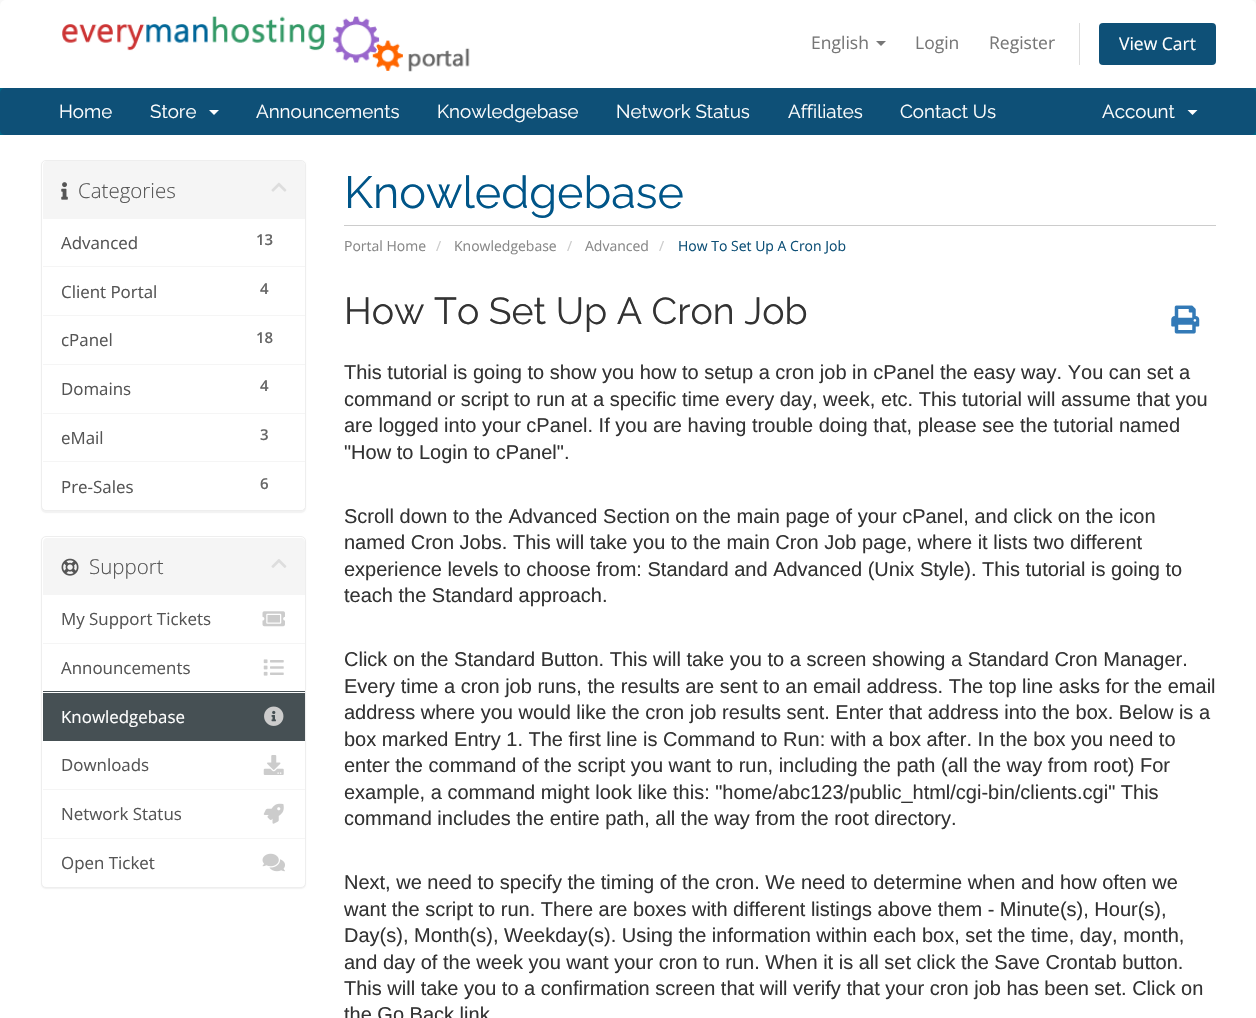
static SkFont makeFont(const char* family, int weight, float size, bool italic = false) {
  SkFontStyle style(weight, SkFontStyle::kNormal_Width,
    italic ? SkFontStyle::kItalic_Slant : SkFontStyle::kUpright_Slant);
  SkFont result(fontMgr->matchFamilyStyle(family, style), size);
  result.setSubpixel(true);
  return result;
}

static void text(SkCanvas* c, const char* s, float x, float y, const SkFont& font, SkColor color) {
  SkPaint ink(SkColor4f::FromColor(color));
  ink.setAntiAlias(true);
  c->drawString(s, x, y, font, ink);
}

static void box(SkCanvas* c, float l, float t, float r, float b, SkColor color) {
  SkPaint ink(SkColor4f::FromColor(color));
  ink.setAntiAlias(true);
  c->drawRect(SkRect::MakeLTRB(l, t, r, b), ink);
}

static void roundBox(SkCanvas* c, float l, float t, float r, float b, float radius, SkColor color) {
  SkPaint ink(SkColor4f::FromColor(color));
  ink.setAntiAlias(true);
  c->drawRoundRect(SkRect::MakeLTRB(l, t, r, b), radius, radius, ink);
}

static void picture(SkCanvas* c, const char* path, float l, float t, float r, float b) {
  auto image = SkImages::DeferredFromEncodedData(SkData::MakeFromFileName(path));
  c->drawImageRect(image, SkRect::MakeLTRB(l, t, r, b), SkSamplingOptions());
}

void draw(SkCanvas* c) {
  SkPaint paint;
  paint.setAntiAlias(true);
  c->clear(0xfff8f8f8);
  paint.setColor(0xffffffff);
  c->drawPath(SkPathBuilder().moveTo(6, 0).lineTo(1250, 0).cubicTo(1253.5f, 0, 1256, 2.5f, 1256, 6).lineTo(1256, 88).lineTo(0, 88).lineTo(0, 6).cubicTo(0, 2.5f, 2.5f, 0, 6, 0).close().detach(), paint);
  picture(c, "img_01.png", 62, 16, 470, 72);
  SkFont face1 = makeFont("Open Sans", 400, 17.5f);
  text(c, "English", 811, 49, face1, 0xff777777);
  paint.setColor(0xff777777);
  c->drawPath(SkPathBuilder().moveTo(876, 41).lineTo(886, 41).lineTo(881, 46).close().detach(), paint);
  text(c, "Login", 915, 49, face1, 0xff777777);
  text(c, "Register", 989, 49, face1, 0xff777777);
  box(c, 1079, 23, 1080, 65, 0xffdddddd);
  roundBox(c, 1099, 23, 1216, 65, 4, 0xff0e5077);
  text(c, "View Cart", 1119, 50, face1, 0xffffffff);
  box(c, 0, 88, 1256, 135, 0xff006687);
  roundBox(c, 0, 88, 1256, 135, 5, 0xff0e5077);
  SkFont face2 = makeFont("Raleway", 400, 18.75f);
  text(c, "Home", 59, 118, face2, 0xffffffff);
  text(c, "Store", 150, 118, face2, 0xffffffff);
  paint.setColor(0xffffffff);
  c->drawPath(SkPathBuilder().moveTo(209, 110).lineTo(219, 110).lineTo(214, 115).close().detach(), paint);
  text(c, "Announcements", 256, 118, face2, 0xffffffff);
  text(c, "Knowledgebase", 437, 118, face2, 0xffffffff);
  text(c, "Network Status", 616, 118, face2, 0xffffffff);
  text(c, "Affiliates", 788, 118, face2, 0xffffffff);
  text(c, "Contact Us", 900, 118, face2, 0xffffffff);
  text(c, "Account", 1102, 118, face2, 0xffffffff);
  c->drawPath(SkPathBuilder().moveTo(1187.5f, 110).lineTo(1197.5f, 110).lineTo(1192.5f, 115).close().detach(), paint);
  box(c, 0, 135, 1256, 1018, 0xffffffff);
  paint.setColor(0x0d000000);
  paint.setMaskFilter(SkMaskFilter::MakeBlur(kNormal_SkBlurStyle, 0.5f));
  c->drawRoundRect(SkRect::MakeLTRB(41, 161, 306, 513), 5, 5, paint);
  paint.setMaskFilter(nullptr);
  paint.setColor(0xffffffff);
  c->drawRoundRect(SkRect::MakeLTRB(41.5f, 160.5f, 305.5f, 510.5f), 4.5f, 4.5f, paint);
  paint.setStyle(SkPaint::kStroke_Style);
  paint.setStrokeWidth(1);
  paint.setColor(0xffeeeeee);
  c->drawRoundRect(SkRect::MakeLTRB(41.5f, 160.5f, 305.5f, 510.5f), 4.5f, 4.5f, paint);
  paint.setStyle(SkPaint::kFill_Style);
  paint.setColor(0xfff5f5f5);
  c->drawPath(SkPathBuilder().moveTo(47, 161).lineTo(301, 161).cubicTo(303, 161, 305, 163, 305, 165).lineTo(305, 219).lineTo(43, 219).lineTo(43, 165).cubicTo(43, 163, 45, 161, 47, 161).close().detach(), paint);
  picture(c, "img_02.png", 61, 182, 68, 200);
  SkFont face3 = makeFont("Open Sans", 300, 20.5f);
  text(c, "Categories", 78, 198, face3, 0xff555555);
  picture(c, "img_03.png", 271, 182, 287, 192);
  box(c, 43, 266, 305, 267, 0xfff5f5f5);
  SkFont face4 = makeFont("Open Sans", 400, 16.9f);
  text(c, "Advanced", 61, 249, face4, 0xff555555);
  SkFont face5 = makeFont("Open Sans", 600, 15);
  text(c, "13", 256, 245, face5, 0xff666666);
  box(c, 43, 315, 305, 316, 0xfff5f5f5);
  text(c, "Client Portal", 61, 298, face4, 0xff555555);
  text(c, "4", 260, 294, face5, 0xff666666);
  box(c, 43, 364, 305, 365, 0xfff5f5f5);
  text(c, "cPanel", 61, 346, face4, 0xff555555);
  text(c, "18", 256, 343, face5, 0xff666666);
  box(c, 43, 413, 305, 414, 0xfff5f5f5);
  text(c, "Domains", 61, 395, face4, 0xff555555);
  text(c, "4", 260, 391, face5, 0xff666666);
  text(c, "eMail", 61, 444, face4, 0xff555555);
  text(c, "3", 260, 440, face5, 0xff666666);
  paint.setColor(0xffffffff);
  c->drawPath(SkPathBuilder().moveTo(43, 461).lineTo(305, 461).lineTo(305, 506).cubicTo(305, 508, 303, 510, 301, 510).lineTo(47, 510).cubicTo(45, 510, 43, 508, 43, 506).close().detach(), paint);
  box(c, 43, 461, 305, 462, 0xfff5f5f5);
  text(c, "Pre-Sales", 61, 493, face4, 0xff555555);
  text(c, "6", 260, 489, face5, 0xff666666);
  box(c, 344, 225, 1216, 226, 0xffcccccc);
  SkFont face6 = makeFont("Raleway", 400, 45);
  text(c, "Knowledgebase", 344, 208, face6, 0xff005588);
  SkFont face7 = makeFont("Open Sans", 400, 14);
  text(c, "Portal Home", 344, 251, face7, 0xff888888);
  text(c, "/", 436, 251, face7, 0xffcccccc);
  text(c, "Knowledgebase", 454, 251, face7, 0xff888888);
  text(c, "/", 567, 251, face7, 0xffcccccc);
  text(c, "Advanced", 585, 251, face7, 0xff888888);
  text(c, "/", 659, 251, face7, 0xffcccccc);
  text(c, "How To Set Up A Cron Job", 678, 251, face7, 0xff0e5077);
  paint.setColor(0x0d000000);
  paint.setMaskFilter(SkMaskFilter::MakeBlur(kNormal_SkBlurStyle, 0.5f));
  c->drawRoundRect(SkRect::MakeLTRB(41, 538, 306, 889), 5, 5, paint);
  paint.setMaskFilter(nullptr);
  paint.setColor(0xffffffff);
  c->drawRoundRect(SkRect::MakeLTRB(41.5f, 536.5f, 305.5f, 887.5f), 4.5f, 4.5f, paint);
  paint.setStyle(SkPaint::kStroke_Style);
  paint.setColor(0xffeeeeee);
  c->drawRoundRect(SkRect::MakeLTRB(41.5f, 536.5f, 305.5f, 887.5f), 4.5f, 4.5f, paint);
  paint.setStyle(SkPaint::kFill_Style);
  paint.setColor(0xfff5f5f5);
  c->drawPath(SkPathBuilder().moveTo(47, 538).lineTo(301, 538).cubicTo(303, 538, 305, 540, 305, 542).lineTo(305, 595).lineTo(43, 595).lineTo(43, 542).cubicTo(43, 540, 45, 538, 47, 538).close().detach(), paint);
  picture(c, "img_04.png", 61, 558, 79, 576);
  text(c, "Support", 89, 574, face3, 0xff555555);
  picture(c, "img_05.png", 271, 559, 287, 568);
  box(c, 43, 643, 305, 644, 0xfff5f5f5);
  text(c, "My Support Tickets", 61, 625, face4, 0xff555555);
  picture(c, "img_06.png", 262, 611, 285, 627);
  text(c, "Announcements", 61, 674, face4, 0xff555555);
  picture(c, "img_07.png", 263, 659, 284, 676);
  box(c, 43, 693, 305, 741, 0xff465054);
  box(c, 43, 691, 305, 692, 0xff465054);
  text(c, "Knowledgebase", 61, 723, face4, 0xffffffff);
  picture(c, "img_08.png", 264, 706, 284, 726);
  box(c, 43, 789, 305, 790, 0xfff5f5f5);
  text(c, "Downloads", 61, 771, face4, 0xff555555);
  picture(c, "img_09.png", 263, 755, 284, 775);
  text(c, "Network Status", 61, 820, face4, 0xff555555);
  picture(c, "img_10.png", 263, 803, 284, 824);
  box(c, 43, 838, 305, 839, 0xfff5f5f5);
  text(c, "Open Ticket", 61, 869, face4, 0xff555555);
  picture(c, "img_11.png", 262, 853, 285, 872);
  SkFont face8 = makeFont("Raleway", 400, 37.5f);
  text(c, "How To Set Up A Cron Job", 344, 324, face8, 0xff333333);
  picture(c, "img_12.png", 1171, 305, 1200, 334);
  SkFont face9 = makeFont("Liberation Sans", 400, 20);
  text(c, "This tutorial is going to show you how to setup a cron job in cPanel the easy way. You can set a", 344, 379, face9, 0xff333333);
  text(c, "command or script to run at a specific time every day, week, etc. This tutorial will assume that you", 344, 406, face9, 0xff333333);
  text(c, "are logged into your cPanel. If you are having trouble doing that, please see the tutorial named", 344, 432, face9, 0xff333333);
  text(c, "\"How to Login to cPanel\".", 344, 459, face9, 0xff333333);
  text(c, "Scroll down to the Advanced Section on the main page of your cPanel, and click on the icon", 344, 523, face9, 0xff333333);
  text(c, "named Cron Jobs. This will take you to the main Cron Job page, where it lists two different", 344, 549, face9, 0xff333333);
  text(c, "experience levels to choose from: Standard and Advanced (Unix Style). This tutorial is going to", 344, 576, face9, 0xff333333);
  text(c, "teach the Standard approach.", 344, 602, face9, 0xff333333);
  text(c, "Click on the Standard Button. This will take you to a screen showing a Standard Cron Manager.", 344, 666, face9, 0xff333333);
  text(c, "Every time a cron job runs, the results are sent to an email address. The top line asks for the email", 344, 693, face9, 0xff333333);
  text(c, "address where you would like the cron job results sent. Enter that address into the box. Below is a", 344, 719, face9, 0xff333333);
  text(c, "box marked Entry 1. The first line is Command to Run: with a box after. In the box you need to", 344, 746, face9, 0xff333333);
  text(c, "enter the command of the script you want to run, including the path (all the way from root) For", 344, 772, face9, 0xff333333);
  text(c, "example, a command might look like this: \"home/abc123/public_html/cgi-bin/clients.cgi\" This", 344, 799, face9, 0xff333333);
  text(c, "command includes the entire path, all the way from the root directory.", 344, 825, face9, 0xff333333);
  text(c, "Next, we need to specify the timing of the cron. We need to determine when and how often we", 344, 889, face9, 0xff333333);
  text(c, "want the script to run. There are boxes with different listings above them - Minute(s), Hour(s),", 344, 916, face9, 0xff333333);
  text(c, "Day(s), Month(s), Weekday(s). Using the information within each box, set the time, day, month,", 344, 942, face9, 0xff333333);
  text(c, "and day of the week you want your cron to run. When it is all set click the Save Crontab button.", 344, 969, face9, 0xff333333);
  text(c, "This will take you to a confirmation screen that will verify that your cron job has been set. Click on", 344, 995, face9, 0xff333333);
  text(c, "the Go Back link", 344, 1021, face9, 0xff333333);
}
